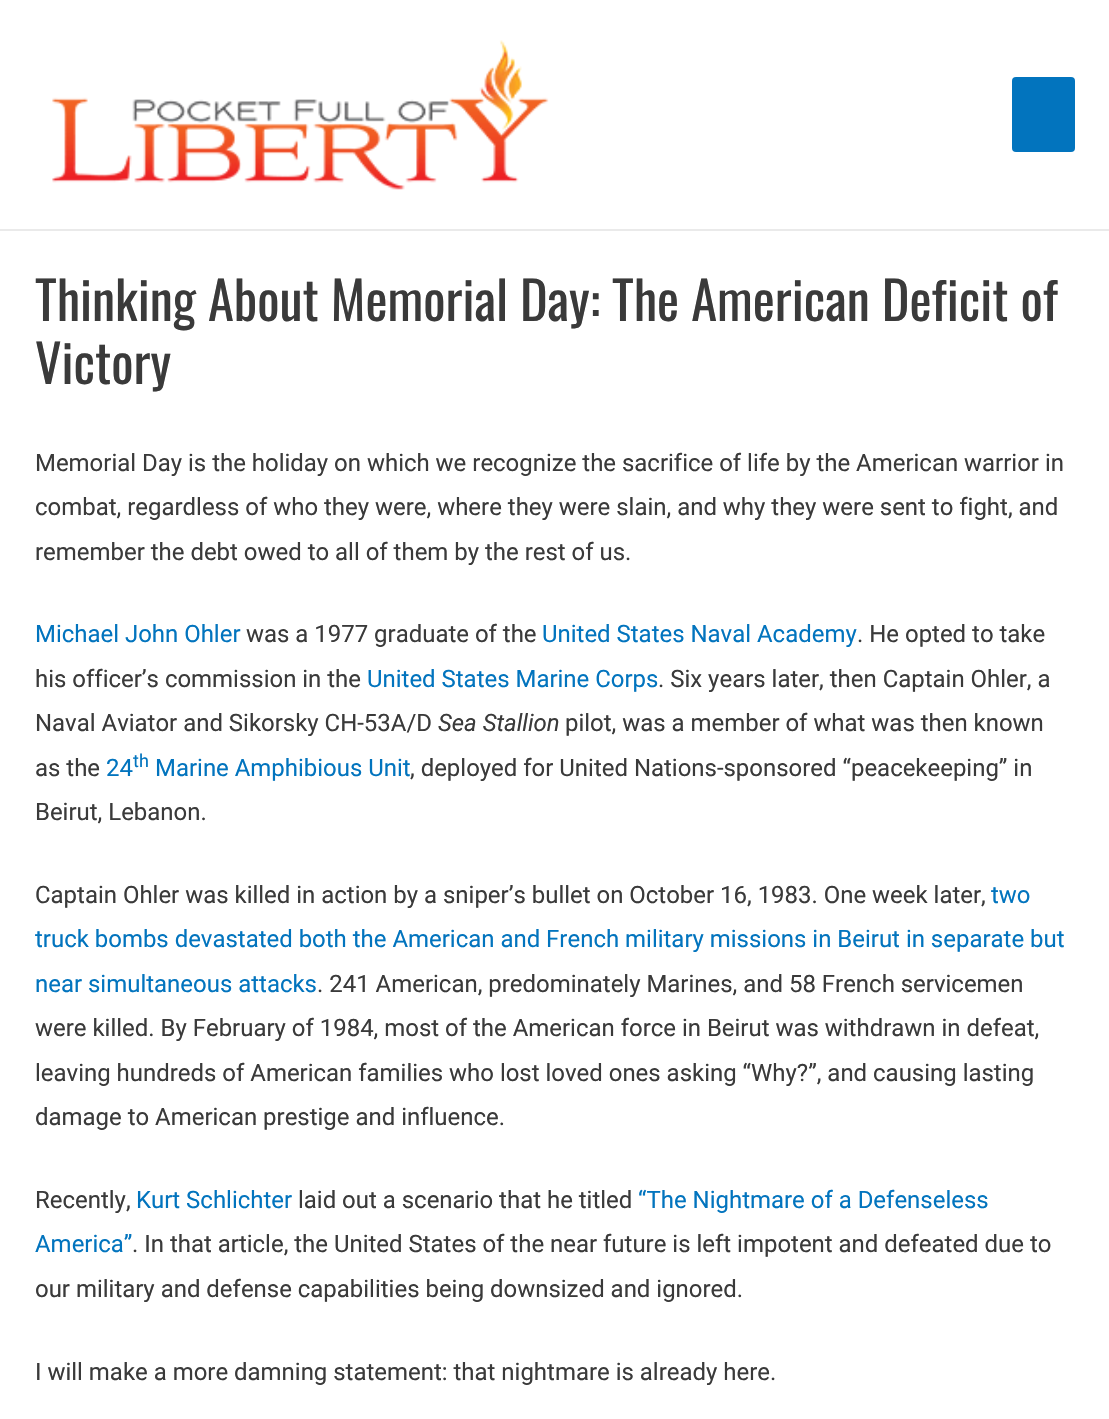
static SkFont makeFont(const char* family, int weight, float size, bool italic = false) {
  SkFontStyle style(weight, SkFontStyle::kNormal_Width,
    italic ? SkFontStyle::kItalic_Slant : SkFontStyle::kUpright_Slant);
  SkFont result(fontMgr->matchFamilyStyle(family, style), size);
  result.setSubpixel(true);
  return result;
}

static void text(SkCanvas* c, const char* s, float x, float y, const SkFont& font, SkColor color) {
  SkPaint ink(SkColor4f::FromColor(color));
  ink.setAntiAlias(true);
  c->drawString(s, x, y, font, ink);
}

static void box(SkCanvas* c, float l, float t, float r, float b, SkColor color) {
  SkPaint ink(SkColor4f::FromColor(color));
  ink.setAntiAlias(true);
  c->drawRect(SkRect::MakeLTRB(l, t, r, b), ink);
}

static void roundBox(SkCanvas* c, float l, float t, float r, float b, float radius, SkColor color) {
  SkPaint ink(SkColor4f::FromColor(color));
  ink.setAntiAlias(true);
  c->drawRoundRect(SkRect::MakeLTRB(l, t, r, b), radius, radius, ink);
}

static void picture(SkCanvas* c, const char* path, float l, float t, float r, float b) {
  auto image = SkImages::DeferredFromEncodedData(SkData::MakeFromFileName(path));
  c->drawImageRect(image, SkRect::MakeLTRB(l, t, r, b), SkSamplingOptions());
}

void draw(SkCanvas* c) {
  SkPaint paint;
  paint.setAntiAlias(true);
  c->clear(0xffffffff);
  box(c, 0, 229, 1109, 231, 0xffeaeaea);
  picture(c, "img_01.png", 52, 40, 549, 190);
  roundBox(c, 1012, 77, 1075, 152, 4, 0xff0274be);
  SkFont face1 = makeFont("Oswald", 400, 52.5f);
  text(c, "Thinking About Memorial Day: The American Deficit of", 35, 321, face1, 0xff3a3a3a);
  text(c, "Victory", 35, 384, face1, 0xff3a3a3a);
  SkFont face2 = makeFont("Roboto", 400, 23.95f);
  text(c, "Memorial Day is the holiday on which we recognize the sacrifice of life by the American warrior in", 35, 471, face2, 0xff3a3a3a);
  text(c, "combat, regardless of who they were, where they were slain, and why they were sent to fight, and", 35, 515, face2, 0xff3a3a3a);
  text(c, "remember the debt owed to all of them by the rest of us.", 35, 560, face2, 0xff3a3a3a);
  text(c, "Michael John Ohler", 35, 642, face2, 0xff0274be);
  text(c, "was a 1977 graduate of the", 246, 642, face2, 0xff3a3a3a);
  text(c, "United States Naval Academy", 542, 642, face2, 0xff0274be);
  text(c, ". He opted to take", 857, 642, face2, 0xff3a3a3a);
  text(c, "his officer’s commission in the", 35, 687, face2, 0xff3a3a3a);
  text(c, "United States Marine Corps", 367, 687, face2, 0xff0274be);
  text(c, ". Six years later, then Captain Ohler, a", 658, 687, face2, 0xff3a3a3a);
  text(c, "Naval Aviator and Sikorsky CH-53A/D", 35, 731, face2, 0xff3a3a3a);
  SkFont face3 = makeFont("Roboto", 400, 23.95f, true);
  text(c, "Sea Stallion", 438, 731, face3, 0xff3a3a3a);
  text(c, "pilot, was a member of what was then known", 565, 731, face2, 0xff3a3a3a);
  text(c, "as the", 35, 776, face2, 0xff3a3a3a);
  text(c, "24", 106, 776, face2, 0xff0274be);
  SkFont face4 = makeFont("Roboto", 400, 18);
  text(c, "th", 133, 767, face4, 0xff0274be);
  text(c, "Marine Amphibious Unit", 155, 776, face2, 0xff0274be);
  text(c, ", deployed for United Nations-sponsored “peacekeeping” in", 410, 776, face2, 0xff3a3a3a);
  text(c, "Beirut, Lebanon.", 35, 820, face2, 0xff3a3a3a);
  text(c, "Captain Ohler was killed in action by a sniper’s bullet on October 16, 1983. One week later,", 35, 903, face2, 0xff3a3a3a);
  text(c, "two", 991, 903, face2, 0xff0274be);
  text(c, "truck bombs devastated both the American and French military missions in Beirut in separate but", 35, 947, face2, 0xff0274be);
  text(c, "near simultaneous attacks", 35, 992, face2, 0xff0274be);
  text(c, ". 241 American, predominately Marines, and 58 French servicemen", 317, 992, face2, 0xff3a3a3a);
  text(c, "were killed. By February of 1984, most of the American force in Beirut was withdrawn in defeat,", 35, 1036, face2, 0xff3a3a3a);
  text(c, "leaving hundreds of American families who lost loved ones asking “Why?”, and causing lasting", 35, 1081, face2, 0xff3a3a3a);
  text(c, "damage to American prestige and influence.", 35, 1125, face2, 0xff3a3a3a);
  text(c, "Recently,", 35, 1208, face2, 0xff3a3a3a);
  text(c, "Kurt Schlichter", 136, 1208, face2, 0xff0274be);
  text(c, "laid out a scenario that he titled", 298, 1208, face2, 0xff3a3a3a);
  text(c, "“The Nightmare of a Defenseless", 638, 1208, face2, 0xff0274be);
  text(c, "America”", 35, 1252, face2, 0xff0274be);
  text(c, ". In that article, the United States of the near future is left impotent and defeated due to", 132, 1252, face2, 0xff3a3a3a);
  text(c, "our military and defense capabilities being downsized and ignored.", 35, 1297, face2, 0xff3a3a3a);
  text(c, "I will make a more damning statement: that nightmare is already here.", 35, 1380, face2, 0xff3a3a3a);
}
